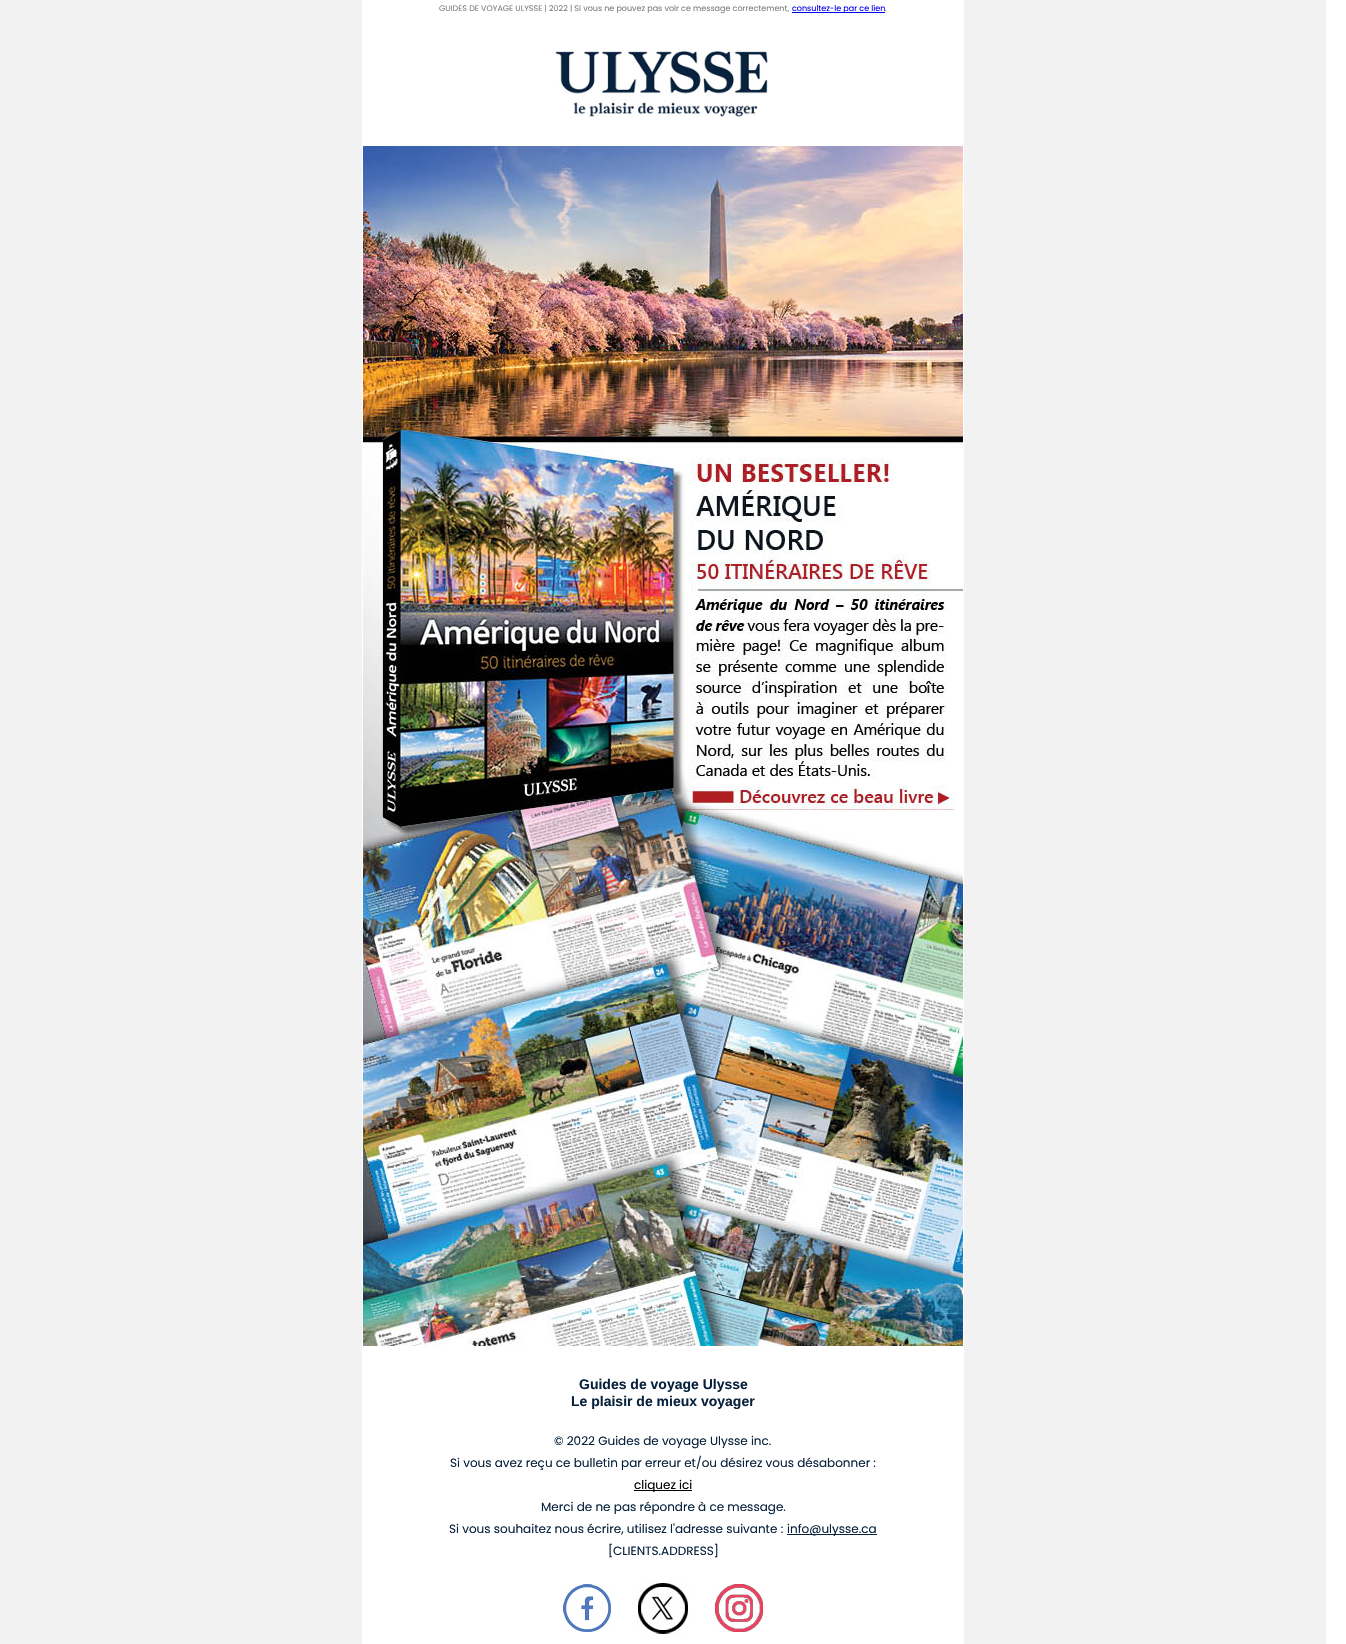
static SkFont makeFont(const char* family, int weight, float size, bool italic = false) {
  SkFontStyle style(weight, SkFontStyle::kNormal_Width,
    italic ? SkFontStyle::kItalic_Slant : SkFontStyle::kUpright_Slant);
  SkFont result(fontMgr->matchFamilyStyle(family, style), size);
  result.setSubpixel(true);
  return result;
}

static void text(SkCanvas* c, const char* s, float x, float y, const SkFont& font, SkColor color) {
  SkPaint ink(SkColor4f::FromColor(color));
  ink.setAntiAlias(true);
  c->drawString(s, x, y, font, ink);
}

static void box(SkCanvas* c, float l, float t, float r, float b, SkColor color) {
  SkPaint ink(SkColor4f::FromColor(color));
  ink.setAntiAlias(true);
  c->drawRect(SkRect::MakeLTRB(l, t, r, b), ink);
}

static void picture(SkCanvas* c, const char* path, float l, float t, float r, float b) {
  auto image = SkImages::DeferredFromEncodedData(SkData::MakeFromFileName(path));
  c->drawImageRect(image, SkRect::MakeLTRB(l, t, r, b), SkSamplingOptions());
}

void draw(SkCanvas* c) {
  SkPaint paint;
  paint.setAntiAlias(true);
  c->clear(0xfff2f2f2);
  box(c, 362, 0, 964, 1644, 0xffffffff);
  SkFont face1 = makeFont("Poppins", 400, 8);
  text(c, "GUIDES DE VOYAGE ULYSSE | 2022 | Si vous ne pouvez pas voir ce message correctement,", 439, 11, face1, 0xff808080);
  box(c, 792, 12, 885, 13, 0xff0000ee);
  text(c, "consultez-le par ce lien", 792, 11, face1, 0xff0000ee);
  text(c, ".", 885, 11, face1, 0xff808080);
  picture(c, "img_01.png", 555, 51, 768, 117);
  picture(c, "img_02.png", 363, 146, 963, 1346);
  SkFont face2 = makeFont("Liberation Sans", 700, 14);
  text(c, "Guides de voyage Ulysse", 579, 1389, face2, 0xff08223d);
  text(c, "Le plaisir de mieux voyager", 571, 1406, face2, 0xff08223d);
  SkFont face3 = makeFont("Poppins", 400, 12);
  text(c, "© 2022 Guides de voyage Ulysse inc.", 554, 1445, face3, 0xff08223d);
  text(c, "Si vous avez reçu ce bulletin par erreur et/ou désirez vous désabonner :", 450, 1467, face3, 0xff08223d);
  box(c, 634, 1490, 692, 1491, 0xff000000);
  text(c, "cliquez ici", 634, 1489, face3, 0xff000000);
  text(c, "Merci de ne pas répondre à ce message.", 541, 1511, face3, 0xff08223d);
  text(c, "Si vous souhaitez nous écrire, utilisez l'adresse suivante :", 449, 1533, face3, 0xff08223d);
  box(c, 787, 1534, 877, 1535, 0xff09223d);
  text(c, "info@ulysse.ca", 787, 1533, face3, 0xff08223d);
  text(c, "[CLIENTS.ADDRESS]", 608, 1555, face3, 0xff08223d);
  picture(c, "img_03.png", 563, 1584, 614, 1632);
  picture(c, "img_04.png", 636, 1581, 690, 1635);
  picture(c, "img_05.png", 715, 1584, 763, 1632);
  box(c, 1326, 0, 1346, 1644, 0xffffffff);
}
